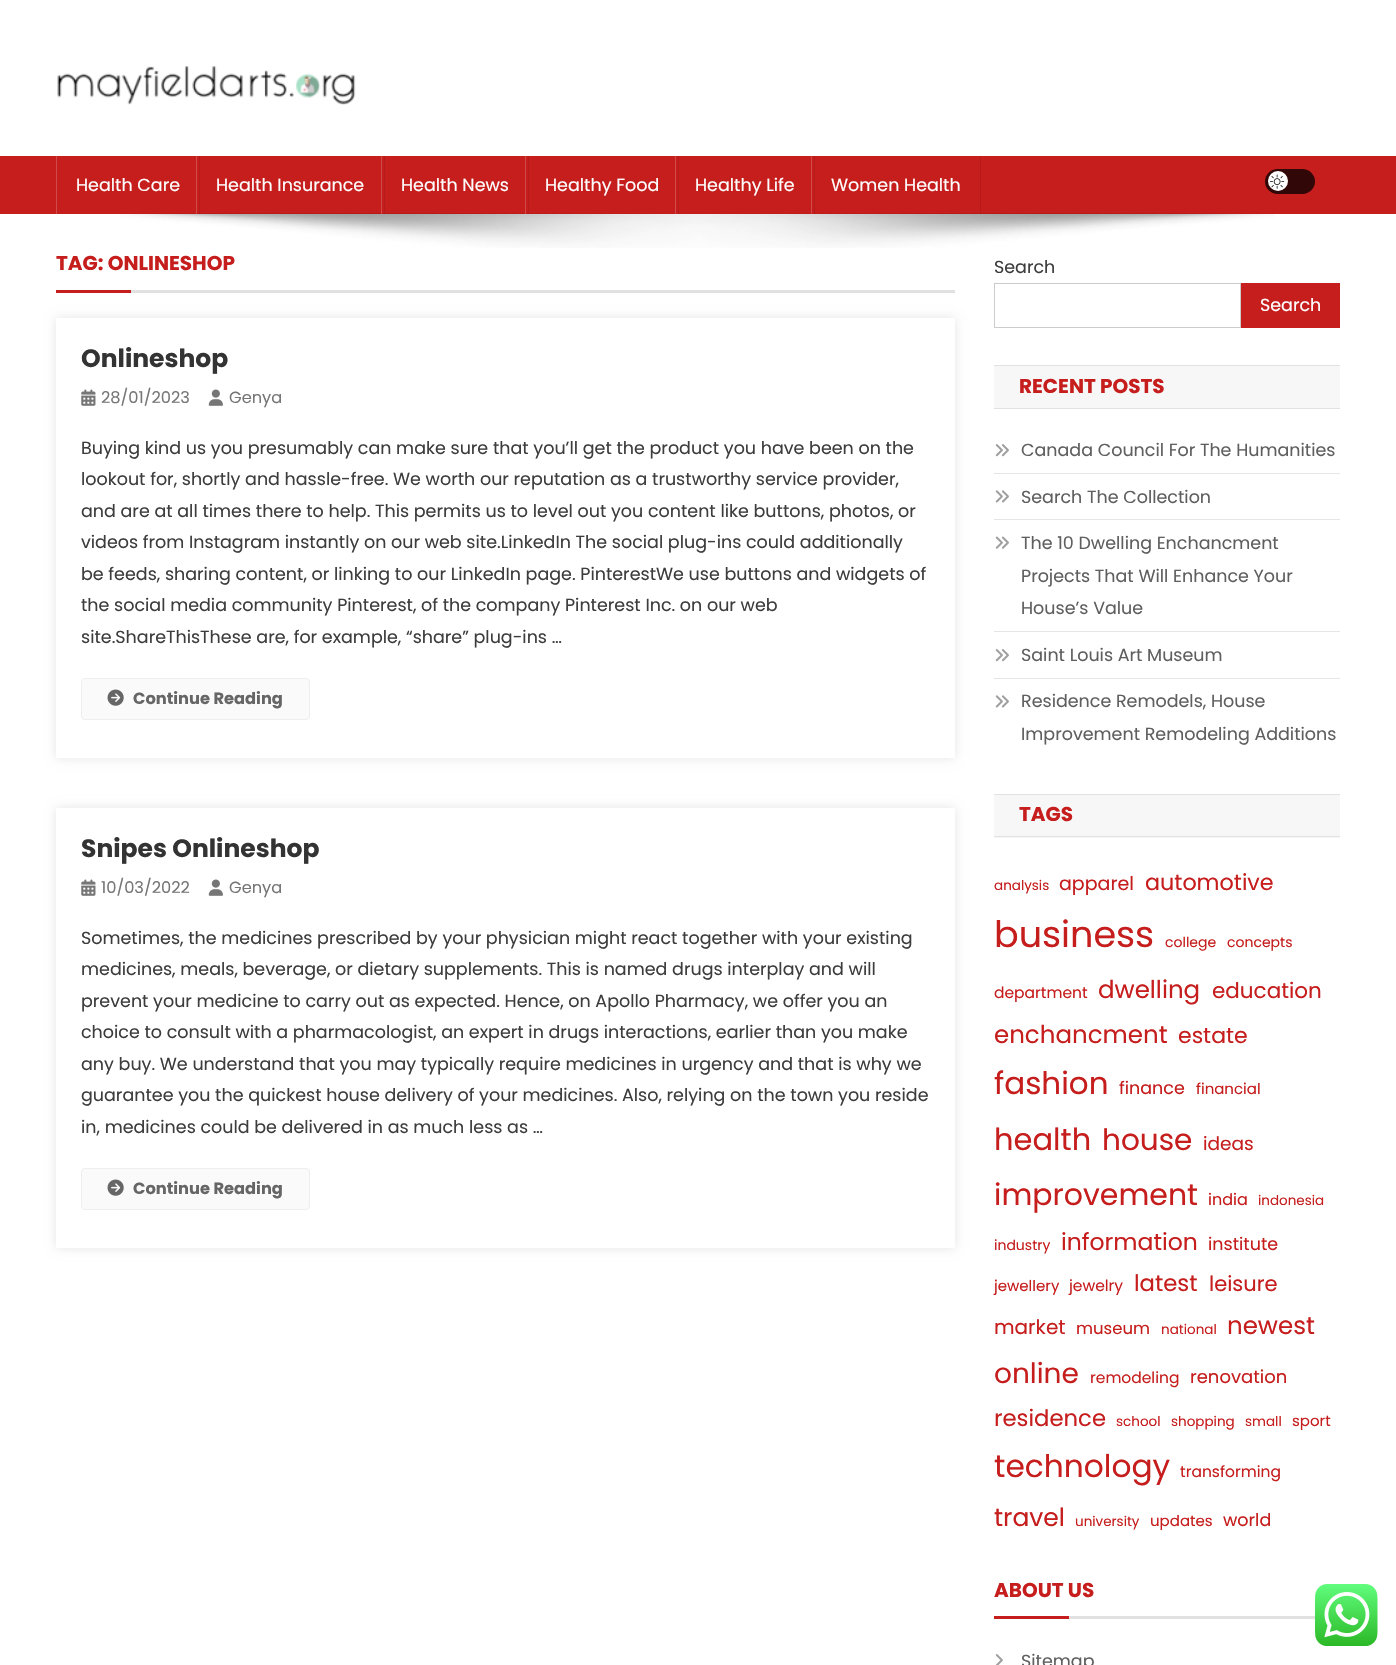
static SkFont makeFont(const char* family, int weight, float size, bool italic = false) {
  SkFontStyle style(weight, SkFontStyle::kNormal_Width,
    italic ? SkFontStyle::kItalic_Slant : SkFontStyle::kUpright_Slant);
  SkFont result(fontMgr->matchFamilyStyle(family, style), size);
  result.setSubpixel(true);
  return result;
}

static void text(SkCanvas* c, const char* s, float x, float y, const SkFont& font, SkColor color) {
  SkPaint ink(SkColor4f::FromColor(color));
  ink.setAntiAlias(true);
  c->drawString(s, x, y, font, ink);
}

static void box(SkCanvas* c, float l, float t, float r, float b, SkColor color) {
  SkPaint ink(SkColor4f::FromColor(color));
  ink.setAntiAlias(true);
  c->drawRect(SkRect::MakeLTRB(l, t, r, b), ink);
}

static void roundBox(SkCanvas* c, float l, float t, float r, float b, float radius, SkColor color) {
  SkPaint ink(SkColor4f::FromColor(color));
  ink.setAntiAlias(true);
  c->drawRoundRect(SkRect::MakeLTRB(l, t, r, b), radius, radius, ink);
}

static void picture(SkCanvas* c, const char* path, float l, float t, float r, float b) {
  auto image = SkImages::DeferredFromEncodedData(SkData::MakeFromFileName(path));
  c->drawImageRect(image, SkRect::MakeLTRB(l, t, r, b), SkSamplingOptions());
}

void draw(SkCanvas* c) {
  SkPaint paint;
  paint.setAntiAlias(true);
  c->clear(0xffffffff);
  picture(c, "img_01.png", 57, 66, 356, 105);
  box(c, 0, 156, 1396, 214, 0xffc61d1d);
  box(c, 675, 156, 676, 214, 0xffd14a4a);
  box(c, 678, 156, 679, 214, 0xffb61b1b);
  picture(c, "img_03.png", 120, 213, 1275, 248);
  box(c, 199, 156, 200, 214, 0x14000000);
  box(c, 56, 156, 57, 214, 0xffd14a4a);
  SkFont face1 = makeFont("Poppins", 400, 17.5f);
  text(c, "Health Care", 76, 191, face1, 0xffffffff);
  box(c, 384, 156, 385, 214, 0x14000000);
  box(c, 196, 156, 197, 214, 0x33ffffff);
  text(c, "Health Insurance", 216, 191, face1, 0xffffffff);
  box(c, 528, 156, 529, 214, 0x14000000);
  box(c, 381, 156, 382, 214, 0x33ffffff);
  text(c, "Health News", 401, 191, face1, 0xffffffff);
  box(c, 525, 156, 526, 214, 0x33ffffff);
  text(c, "Healthy Food", 545, 191, face1, 0xffffffff);
  box(c, 814, 156, 815, 214, 0x14000000);
  text(c, "Healthy Life", 695, 191, face1, 0xffffffff);
  box(c, 980, 156, 981, 214, 0x14000000);
  box(c, 811, 156, 812, 214, 0x33ffffff);
  text(c, "Women Health", 831, 191, face1, 0xffffffff);
  roundBox(c, 1265, 169, 1315, 194, 12.5f, 0xff320707);
  paint.setColor(0xffffffff);
  c->drawCircle(1278, 181, 10, paint);
  picture(c, "img_02.png", 1270, 174, 1285, 189);
  box(c, 131, 290, 955, 293, 0xffe1e1e1);
  SkFont face2 = makeFont("Poppins", 700, 20);
  text(c, "TAG: ONLINESHOP", 56, 270, face2, 0xffc61d1d);
  box(c, 56, 290, 131, 293, 0xffc61d1d);
  c->save();
  c->clipPath(SkPathBuilder(SkPathFillType::kEvenOdd).moveTo(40, 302).lineTo(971, 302).lineTo(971, 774).lineTo(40, 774).close().moveTo(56, 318).lineTo(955, 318).lineTo(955, 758).lineTo(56, 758).close().detach(), true);
  paint.setColor(0x1a000000);
  paint.setMaskFilter(SkMaskFilter::MakeBlur(kNormal_SkBlurStyle, 5));
  c->drawRect(SkRect::MakeLTRB(56, 318, 955, 758), paint);
  paint.setMaskFilter(nullptr);
  c->restore();
  SkFont face3 = makeFont("Poppins", 700, 25);
  text(c, "Onlineshop", 81, 367, face3, 0xff333333);
  picture(c, "img_04.png", 81, 389, 96, 406);
  SkFont face4 = makeFont("Poppins", 400, 16.25f);
  text(c, "28/01/2023", 101, 403, face4, 0xff767676);
  picture(c, "img_05.png", 208, 389, 223, 406);
  text(c, "Genya", 229, 403, face4, 0xff767676);
  text(c, "Buying kind us you presumably can make sure that you’ll get the product you have been on the", 81, 454, face1, 0xff3d3d3d);
  text(c, "lookout for, shortly and hassle-free. We worth our reputation as a trustworthy service provider,", 81, 485, face1, 0xff3d3d3d);
  text(c, "and are at all times there to help. This permits us to level out you content like buttons, photos, or", 81, 517, face1, 0xff3d3d3d);
  text(c, "videos from Instagram instantly on our web site.LinkedIn The social plug-ins could additionally", 81, 548, face1, 0xff3d3d3d);
  text(c, "be feeds, sharing content, or linking to our LinkedIn page. PinterestWe use buttons and widgets of", 81, 580, face1, 0xff3d3d3d);
  text(c, "the social media community Pinterest, of the company Pinterest Inc. on our web", 81, 611, face1, 0xff3d3d3d);
  text(c, "site.ShareThisThese are, for example, “share” plug-ins …", 81, 643, face1, 0xff3d3d3d);
  paint.setColor(0xfffafafa);
  c->drawRoundRect(SkRect::MakeLTRB(81.5f, 678.5f, 309.5f, 719.5f), 3.5f, 3.5f, paint);
  paint.setStyle(SkPaint::kStroke_Style);
  paint.setStrokeWidth(1);
  paint.setColor(0xffeeeeee);
  c->drawRoundRect(SkRect::MakeLTRB(81.5f, 678.5f, 309.5f, 719.5f), 3.5f, 3.5f, paint);
  picture(c, "img_06.png", 107, 689, 124, 706);
  SkFont face5 = makeFont("Poppins", 700, 16.25f);
  text(c, "Continue Reading", 133, 704, face5, 0xff666666);
  c->save();
  c->clipPath(SkPathBuilder(SkPathFillType::kEvenOdd).moveTo(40, 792).lineTo(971, 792).lineTo(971, 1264).lineTo(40, 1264).close().moveTo(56, 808).lineTo(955, 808).lineTo(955, 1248).lineTo(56, 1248).close().detach(), true);
  paint.setStyle(SkPaint::kFill_Style);
  paint.setColor(0x1a000000);
  paint.setMaskFilter(SkMaskFilter::MakeBlur(kNormal_SkBlurStyle, 5));
  c->drawRect(SkRect::MakeLTRB(56, 808, 955, 1248), paint);
  paint.setMaskFilter(nullptr);
  c->restore();
  text(c, "Snipes Onlineshop", 81, 857, face3, 0xff333333);
  picture(c, "img_04.png", 81, 879, 96, 896);
  text(c, "10/03/2022", 101, 893, face4, 0xff767676);
  picture(c, "img_05.png", 208, 879, 223, 896);
  text(c, "Genya", 229, 893, face4, 0xff767676);
  text(c, "Sometimes, the medicines prescribed by your physician might react together with your existing", 81, 944, face1, 0xff3d3d3d);
  text(c, "medicines, meals, beverage, or dietary supplements. This is named drugs interplay and will", 81, 975, face1, 0xff3d3d3d);
  text(c, "prevent your medicine to carry out as expected. Hence, on Apollo Pharmacy, we offer you an", 81, 1007, face1, 0xff3d3d3d);
  text(c, "choice to consult with a pharmacologist, an expert in drugs interactions, earlier than you make", 81, 1038, face1, 0xff3d3d3d);
  text(c, "any buy. We understand that you may typically require medicines in urgency and that is why we", 81, 1070, face1, 0xff3d3d3d);
  text(c, "guarantee you the quickest house delivery of your medicines. Also, relying on the town you reside", 81, 1101, face1, 0xff3d3d3d);
  text(c, "in, medicines could be delivered in as much less as …", 81, 1133, face1, 0xff3d3d3d);
  paint.setColor(0xfffafafa);
  c->drawRoundRect(SkRect::MakeLTRB(81.5f, 1168.5f, 309.5f, 1209.5f), 3.5f, 3.5f, paint);
  paint.setStyle(SkPaint::kStroke_Style);
  paint.setColor(0xffeeeeee);
  c->drawRoundRect(SkRect::MakeLTRB(81.5f, 1168.5f, 309.5f, 1209.5f), 3.5f, 3.5f, paint);
  picture(c, "img_06.png", 107, 1179, 124, 1196);
  text(c, "Continue Reading", 133, 1194, face5, 0xff666666);
  text(c, "Search", 994, 273, face1, 0xff3d3d3d);
  paint.setColor(0xffcccccc);
  c->drawRect(SkRect::MakeLTRB(994.5f, 283.5f, 1240.5f, 327.5f), paint);
  box(c, 1241, 283, 1340, 328, 0xffc61d1d);
  text(c, "Search", 1260, 311, face1, 0xffffffff);
  box(c, 994, 366, 1340, 408, 0xfff7f7f7);
  box(c, 994, 365, 1340, 366, 0xffe1e1e1);
  box(c, 994, 408, 1340, 409, 0xffe1e1e1);
  text(c, "RECENT POSTS", 1019, 393, face2, 0xffc61d1d);
  box(c, 994, 473, 1340, 474, 0xffe6e6e6);
  picture(c, "img_07.png", 995, 444, 1009, 457);
  text(c, "Canada Council For The Humanities", 1021, 456, face1, 0xff5f5f5f);
  box(c, 994, 519, 1340, 520, 0xffe6e6e6);
  picture(c, "img_08.png", 995, 490, 1009, 503);
  text(c, "Search The Collection", 1021, 503, face1, 0xff5f5f5f);
  box(c, 994, 631, 1340, 632, 0xffe6e6e6);
  picture(c, "img_09.png", 995, 536, 1009, 549);
  text(c, "The 10 Dwelling Enchancment", 1021, 549, face1, 0xff5f5f5f);
  text(c, "Projects That Will Enhance Your", 1021, 582, face1, 0xff5f5f5f);
  text(c, "House’s Value", 1021, 614, face1, 0xff5f5f5f);
  box(c, 994, 678, 1340, 679, 0xffe6e6e6);
  picture(c, "img_07.png", 995, 649, 1009, 662);
  text(c, "Saint Louis Art Museum", 1021, 661, face1, 0xff5f5f5f);
  picture(c, "img_08.png", 995, 695, 1009, 708);
  text(c, "Residence Remodels, House", 1021, 707, face1, 0xff5f5f5f);
  text(c, "Improvement Remodeling Additions", 1021, 740, face1, 0xff5f5f5f);
  box(c, 994, 795, 1340, 838, 0xfff7f7f7);
  box(c, 994, 794, 1340, 795, 0xffe1e1e1);
  box(c, 994, 836, 1340, 837, 0xffe1e1e1);
  text(c, "TAGS", 1019, 821, face2, 0xffc61d1d);
  SkFont face6 = makeFont("Poppins", 400, 13.5f);
  text(c, "analysis", 994, 890, face6, 0xffc61d1d);
  SkFont face7 = makeFont("Poppins", 400, 19);
  text(c, "apparel", 1059, 890, face7, 0xffc61d1d);
  SkFont face8 = makeFont("Poppins", 400, 22.25f);
  text(c, "automotive", 1145, 890, face8, 0xffc61d1d);
  SkFont face9 = makeFont("Poppins", 400, 36.5f);
  text(c, "business", 994, 947, face9, 0xffc61d1d);
  SkFont face10 = makeFont("Poppins", 400, 14);
  text(c, "college", 1165, 947, face10, 0xffc61d1d);
  text(c, "concepts", 1227, 947, face10, 0xffc61d1d);
  SkFont face11 = makeFont("Poppins", 400, 15.5f);
  text(c, "department", 994, 998, face11, 0xffc61d1d);
  SkFont face12 = makeFont("Poppins", 400, 24.5f);
  text(c, "dwelling", 1098, 998, face12, 0xffc61d1d);
  SkFont face13 = makeFont("Poppins", 400, 21.5f);
  text(c, "education", 1212, 998, face13, 0xffc61d1d);
  text(c, "enchancment", 994, 1043, face12, 0xffc61d1d);
  SkFont face14 = makeFont("Poppins", 400, 22);
  text(c, "estate", 1178, 1043, face14, 0xffc61d1d);
  SkFont face15 = makeFont("Poppins", 400, 31);
  text(c, "fashion", 994, 1094, face15, 0xffc61d1d);
  text(c, "finance", 1119, 1094, face1, 0xffc61d1d);
  SkFont face16 = makeFont("Poppins", 400, 15);
  text(c, "financial", 1196, 1094, face16, 0xffc61d1d);
  SkFont face17 = makeFont("Poppins", 400, 30.5f);
  text(c, "health", 994, 1150, face17, 0xffc61d1d);
  SkFont face18 = makeFont("Poppins", 400, 29.5f);
  text(c, "house", 1102, 1150, face18, 0xffc61d1d);
  SkFont face19 = makeFont("Poppins", 400, 18.5f);
  text(c, "ideas", 1203, 1150, face19, 0xffc61d1d);
  SkFont face20 = makeFont("Poppins", 400, 30);
  text(c, "improvement", 994, 1205, face20, 0xffc61d1d);
  SkFont face21 = makeFont("Poppins", 400, 16);
  text(c, "india", 1208, 1205, face21, 0xffc61d1d);
  text(c, "indonesia", 1258, 1205, face6, 0xffc61d1d);
  text(c, "industry", 994, 1250, face10, 0xffc61d1d);
  SkFont face22 = makeFont("Poppins", 400, 23.5f);
  text(c, "information", 1061, 1250, face22, 0xffc61d1d);
  text(c, "institute", 1208, 1250, face1, 0xffc61d1d);
  text(c, "jewellery", 994, 1291, face16, 0xffc61d1d);
  text(c, "jewelry", 1069, 1291, face11, 0xffc61d1d);
  SkFont face23 = makeFont("Poppins", 400, 22.75f);
  text(c, "latest", 1134, 1291, face23, 0xffc61d1d);
  SkFont face24 = makeFont("Poppins", 400, 21);
  text(c, "leisure", 1209, 1291, face24, 0xffc61d1d);
  SkFont face25 = makeFont("Poppins", 400, 20);
  text(c, "market", 994, 1334, face25, 0xffc61d1d);
  SkFont face26 = makeFont("Poppins", 400, 16.5f);
  text(c, "museum", 1076, 1334, face26, 0xffc61d1d);
  text(c, "national", 1161, 1334, face6, 0xffc61d1d);
  text(c, "newest", 1227, 1334, face12, 0xffc61d1d);
  SkFont face27 = makeFont("Poppins", 400, 28);
  text(c, "online", 994, 1383, face27, 0xffc61d1d);
  text(c, "remodeling", 1090, 1383, face11, 0xffc61d1d);
  SkFont face28 = makeFont("Poppins", 400, 18);
  text(c, "renovation", 1190, 1383, face28, 0xffc61d1d);
  text(c, "residence", 994, 1426, face23, 0xffc61d1d);
  text(c, "school", 1116, 1426, face6, 0xffc61d1d);
  text(c, "shopping", 1171, 1426, face6, 0xffc61d1d);
  text(c, "small", 1245, 1426, face6, 0xffc61d1d);
  text(c, "sport", 1292, 1426, face16, 0xffc61d1d);
  SkFont face29 = makeFont("Poppins", 400, 31.25f);
  text(c, "technology", 994, 1477, face29, 0xffc61d1d);
  text(c, "transforming", 1180, 1477, face11, 0xffc61d1d);
  SkFont face30 = makeFont("Poppins", 400, 25);
  text(c, "travel", 994, 1526, face30, 0xffc61d1d);
  text(c, "university", 1075, 1526, face6, 0xffc61d1d);
  text(c, "updates", 1150, 1526, face16, 0xffc61d1d);
  text(c, "world", 1223, 1526, face1, 0xffc61d1d);
  box(c, 1069, 1616, 1315, 1619, 0xffe1e1e1);
  text(c, "ABOUT US", 994, 1597, face2, 0xffc61d1d);
  box(c, 994, 1616, 1069, 1619, 0xffc61d1d);
  picture(c, "img_10.png", 995, 1654, 1003, 1665);
  text(c, "Sitemap", 1021, 1667, face1, 0xff5f5f5f);
  picture(c, "img_11.png", 1315, 1584, 1378, 1646);
}
